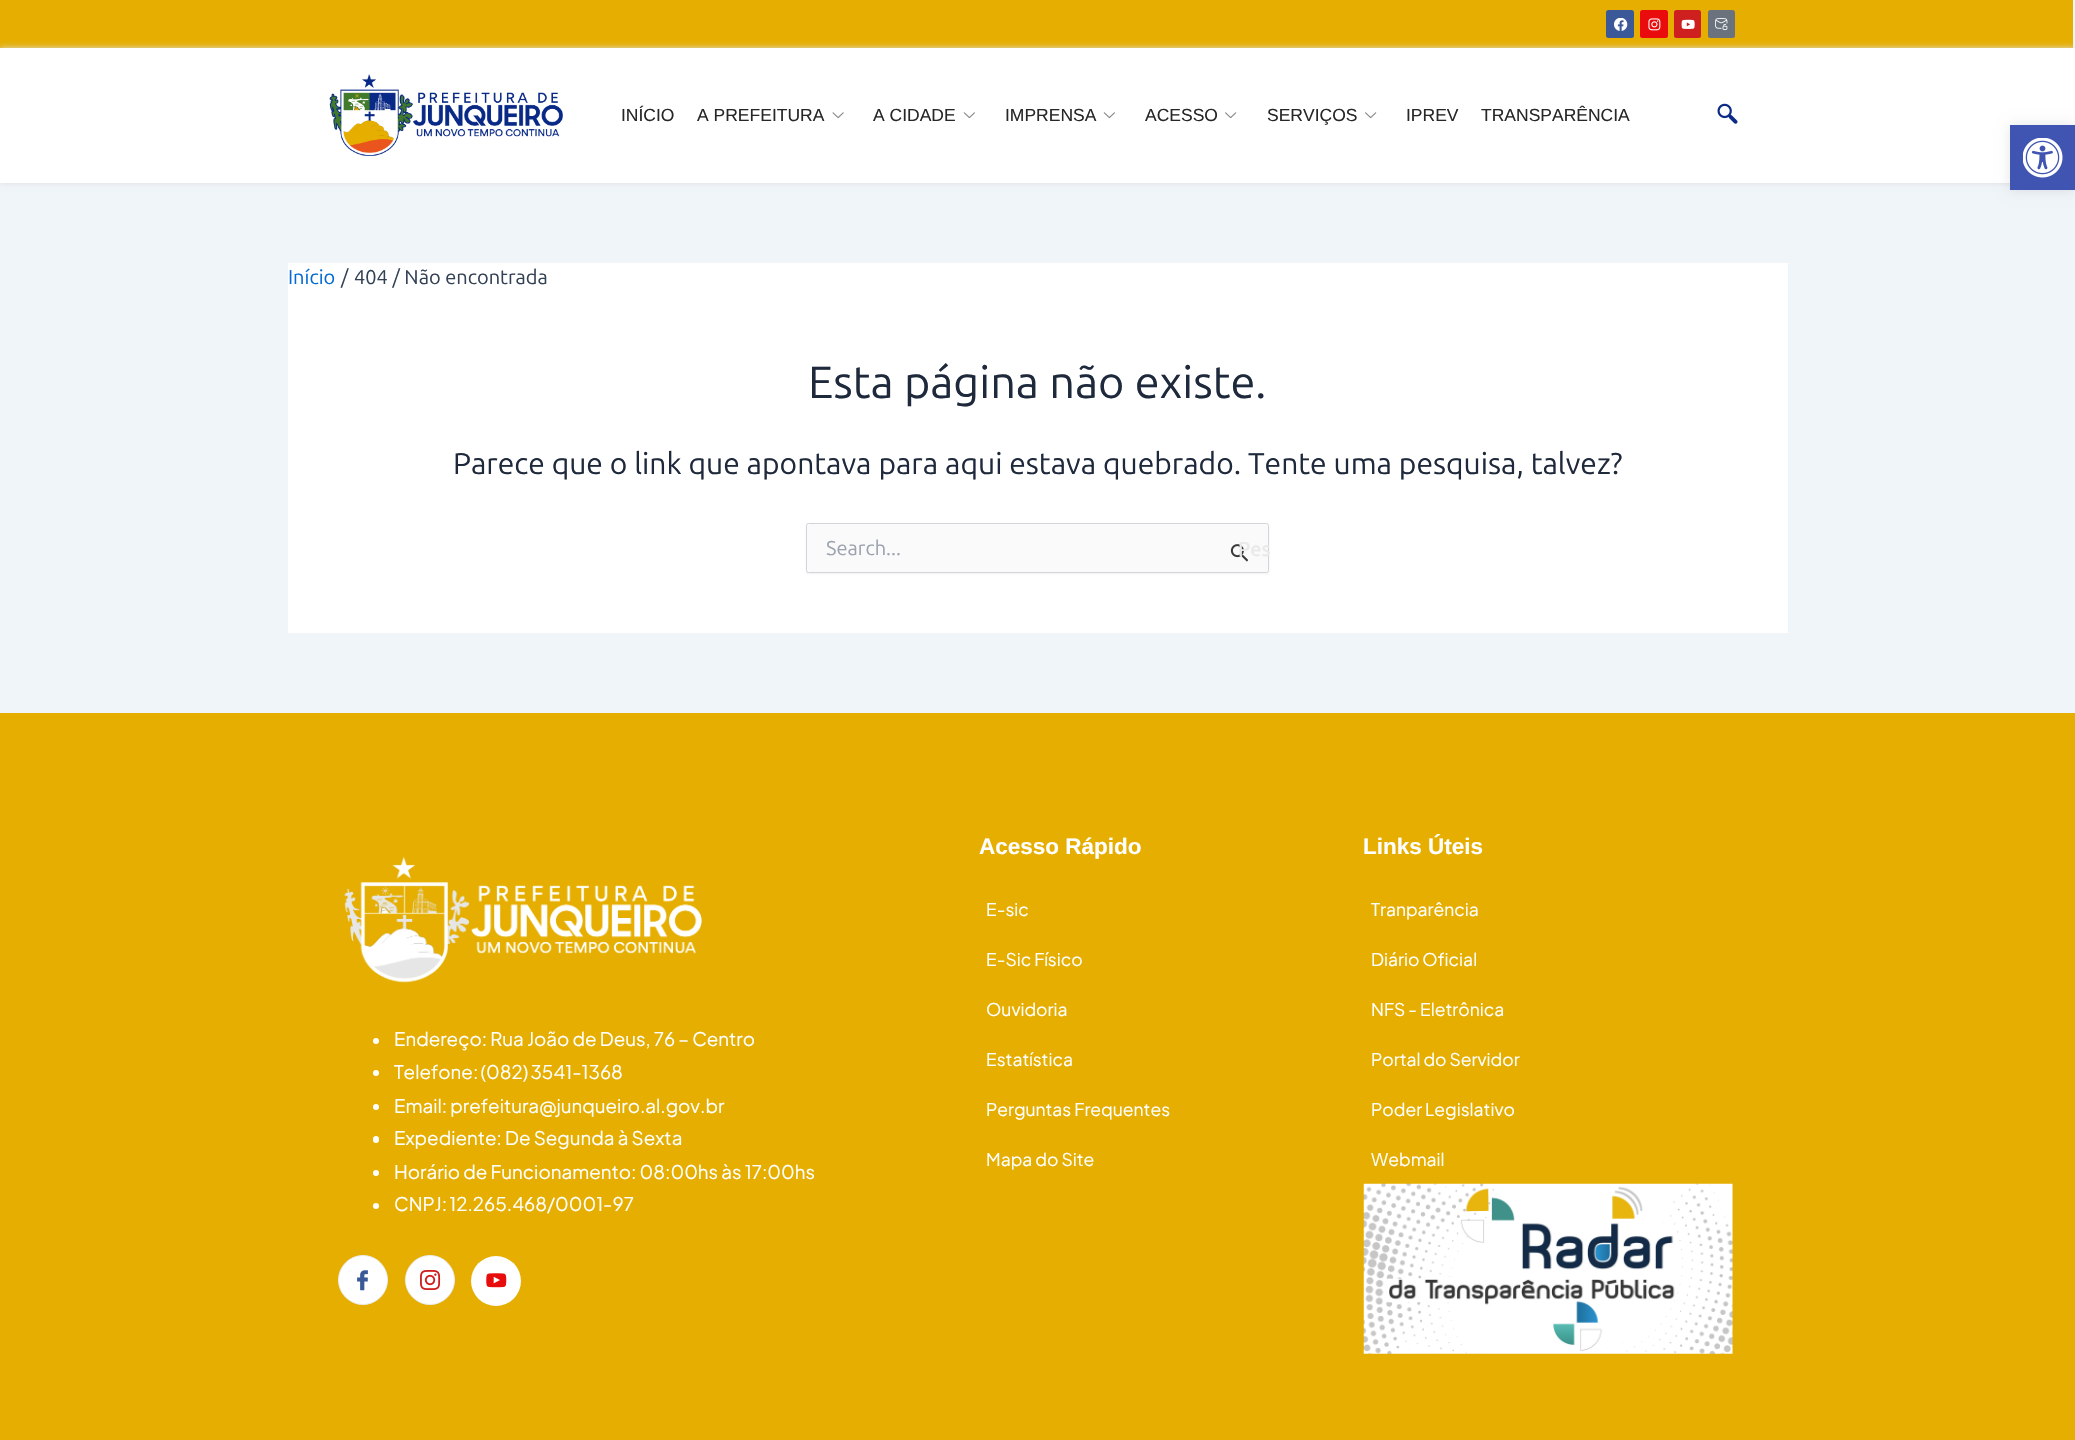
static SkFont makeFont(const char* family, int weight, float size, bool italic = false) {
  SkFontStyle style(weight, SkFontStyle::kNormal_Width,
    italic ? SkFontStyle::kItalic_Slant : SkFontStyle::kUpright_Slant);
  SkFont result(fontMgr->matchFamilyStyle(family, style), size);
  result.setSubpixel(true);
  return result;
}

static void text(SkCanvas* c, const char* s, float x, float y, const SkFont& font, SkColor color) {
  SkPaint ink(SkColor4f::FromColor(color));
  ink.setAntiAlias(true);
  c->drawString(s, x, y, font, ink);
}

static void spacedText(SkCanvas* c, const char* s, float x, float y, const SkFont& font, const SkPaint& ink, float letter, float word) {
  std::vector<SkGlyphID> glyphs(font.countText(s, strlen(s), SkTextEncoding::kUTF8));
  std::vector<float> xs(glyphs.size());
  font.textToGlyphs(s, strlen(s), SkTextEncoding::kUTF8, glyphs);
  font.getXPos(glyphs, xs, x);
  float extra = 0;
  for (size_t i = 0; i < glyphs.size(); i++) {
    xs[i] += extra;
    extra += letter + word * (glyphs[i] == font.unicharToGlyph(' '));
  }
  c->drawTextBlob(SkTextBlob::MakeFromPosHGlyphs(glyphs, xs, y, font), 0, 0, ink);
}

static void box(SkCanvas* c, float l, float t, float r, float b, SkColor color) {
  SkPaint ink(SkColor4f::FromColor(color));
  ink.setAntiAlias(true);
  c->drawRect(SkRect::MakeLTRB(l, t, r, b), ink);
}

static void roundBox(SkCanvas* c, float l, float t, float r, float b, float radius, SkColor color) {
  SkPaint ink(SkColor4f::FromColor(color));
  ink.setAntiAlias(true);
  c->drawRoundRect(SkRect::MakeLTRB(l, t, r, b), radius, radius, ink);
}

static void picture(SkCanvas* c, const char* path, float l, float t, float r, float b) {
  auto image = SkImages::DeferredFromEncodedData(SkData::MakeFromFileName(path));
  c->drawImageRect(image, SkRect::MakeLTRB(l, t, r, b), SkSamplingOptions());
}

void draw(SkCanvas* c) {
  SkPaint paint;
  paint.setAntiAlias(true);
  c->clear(0xfff0f5fa);
  box(c, 0, 0, 2073, 48, 0xffe5ae00);
  roundBox(c, 1606, 10, 1634, 38, 2.5f, 0xff3b5998);
  picture(c, "img_01.png", 1614, 18, 1628, 31);
  roundBox(c, 1640, 10, 1668, 38, 2.5f, 0xffea0c0c);
  picture(c, "img_02.png", 1648, 18, 1661, 31);
  roundBox(c, 1674, 10, 1701, 38, 2.5f, 0xffcd201f);
  picture(c, "img_03.png", 1681, 19, 1695, 29);
  roundBox(c, 1708, 10, 1735, 38, 2.5f, 0xff69727d);
  picture(c, "img_04.png", 1715, 18, 1728, 30);
  paint.setColor(0xffdfdfdf);
  paint.setMaskFilter(SkMaskFilter::MakeBlur(kNormal_SkBlurStyle, 3));
  c->drawRect(SkRect::MakeLTRB(0, 48, 2075, 183), paint);
  paint.setMaskFilter(nullptr);
  box(c, 0, 48, 2075, 183, 0xffffffff);
  picture(c, "img_05.png", 329, 74, 563, 156);
  SkFont face1 = makeFont("Liberation Sans", 400, 17.5f);
  text(c, "INÍCIO", 621, 121, face1, 0xff272727);
  text(c, "A PREFEITURA", 697, 121, face1, 0xff272727);
  picture(c, "img_06.png", 832, 112, 844, 119);
  text(c, "A CIDADE", 873, 121, face1, 0xff272727);
  picture(c, "img_07.png", 963, 112, 975, 119);
  text(c, "IMPRENSA", 1005, 121, face1, 0xff272727);
  picture(c, "img_07.png", 1103, 112, 1115, 119);
  text(c, "ACESSO", 1145, 121, face1, 0xff272727);
  picture(c, "img_08.png", 1225, 112, 1237, 119);
  text(c, "SERVIÇOS", 1267, 121, face1, 0xff272727);
  picture(c, "img_08.png", 1365, 112, 1377, 119);
  text(c, "IPREV", 1406, 121, face1, 0xff272727);
  text(c, "TRANSPARÊNCIA", 1481, 121, face1, 0xff272727);
  picture(c, "img_09.png", 1717, 103, 1738, 124);
  box(c, 288, 263, 1788, 633, 0xffffffff);
  SkFont face2 = makeFont("Ubuntu", 400, 20);
  text(c, "Início", 288, 284, face2, 0xff046bd2);
  text(c, "/", 341, 284, face2, 0xff334155);
  text(c, "404 / Não encontrada", 354, 284, face2, 0xff334155);
  SkFont face3 = makeFont("Ubuntu", 400, 45);
  text(c, "Esta página não existe.", 808, 398, face3, 0xff1e293b);
  SkFont face4 = makeFont("Ubuntu", 400, 30);
  text(c, "Parece que o link que apontava para aqui estava quebrado. Tente uma pesquisa, talvez?", 453, 474, face4, 0xff1e293b);
  paint.setColor(0x0d000000);
  paint.setMaskFilter(SkMaskFilter::MakeBlur(kNormal_SkBlurStyle, 1));
  c->drawRoundRect(SkRect::MakeLTRB(806, 524, 1269, 574), 2.5f, 2.5f, paint);
  paint.setMaskFilter(nullptr);
  paint.setColor(0xfffafafa);
  c->drawRoundRect(SkRect::MakeLTRB(806.5f, 523.5f, 1268.5f, 572.5f), 2, 2, paint);
  paint.setStyle(SkPaint::kStroke_Style);
  paint.setStrokeWidth(1);
  paint.setColor(0xffd1d5db);
  c->drawRoundRect(SkRect::MakeLTRB(806.5f, 523.5f, 1268.5f, 572.5f), 2, 2, paint);
  text(c, "Search...", 826, 555, face2, 0xff9ca3af);
  picture(c, "img_10.png", 1230, 544, 1248, 562);
  SkFont face5 = makeFont("Ubuntu", 500, 20);
  text(c, "Pes", 1238, 556, face5, 0xffe9e9e9);
  box(c, 0, 713, 2075, 1440, 0xffe5ae00);
  picture(c, "img_11.png", 344, 857, 702, 983);
  paint.setStyle(SkPaint::kFill_Style);
  paint.setColor(0xffffffff);
  c->drawCircle(376, 1041, 3, paint);
  SkFont face6 = makeFont("Plus Jakarta Sans", 400, 18.75f);
  text(c, "Endereço: Rua João de Deus, 76 – Centro", 394, 1046, face6, 0xffffffff);
  c->drawCircle(376, 1073, 3, paint);
  spacedText(c, "Telefone: (082) 3541-1368", 394, 1079, face6, paint, 0, -1);
  c->drawCircle(376, 1107, 3, paint);
  text(c, "Email: prefeitura@junqueiro.al.gov.br", 394, 1113, face6, 0xffffffff);
  roundBox(c, 373, 1136, 379, 1143, 3, 0xffffffff);
  text(c, "Expediente: De Segunda à Sexta", 394, 1145, face6, 0xffffffff);
  c->drawCircle(376, 1173, 3, paint);
  text(c, "Horário de Funcionamento: 08:00hs às 17:00hs", 394, 1179, face6, 0xffffffff);
  c->drawCircle(376, 1206, 3, paint);
  spacedText(c, "CNPJ: 12.265.468/0001-97", 394, 1211, face6, paint, 0, -1);
  c->drawCircle(363, 1280, 24.5f, paint);
  paint.setStyle(SkPaint::kStroke_Style);
  paint.setColor(0xffeaebf1);
  c->drawCircle(363, 1280, 24.5f, paint);
  picture(c, "img_12.png", 357, 1270, 368, 1291);
  paint.setStyle(SkPaint::kFill_Style);
  paint.setColor(0xffffffff);
  c->drawCircle(430, 1280, 24.5f, paint);
  paint.setStyle(SkPaint::kStroke_Style);
  paint.setColor(0xffeaebf1);
  c->drawCircle(430, 1280, 24.5f, paint);
  picture(c, "img_13.png", 420, 1270, 441, 1290);
  paint.setStyle(SkPaint::kFill_Style);
  paint.setColor(0xffffffff);
  c->drawCircle(496, 1281, 25, paint);
  picture(c, "img_14.png", 486, 1273, 507, 1288);
  SkFont face7 = makeFont("Liberation Sans", 700, 22.5f);
  text(c, "Acesso Rápido", 979, 854, face7, 0xffffffff);
  SkFont face8 = makeFont("Plus Jakarta Sans", 400, 17.5f);
  text(c, "E-sic", 986, 916, face8, 0xffffffff);
  text(c, "E-Sic Físico", 986, 966, face8, 0xffffffff);
  text(c, "Ouvidoria", 986, 1016, face8, 0xffffffff);
  text(c, "Estatística", 986, 1066, face8, 0xffffffff);
  text(c, "Perguntas Frequentes", 986, 1116, face8, 0xffffffff);
  text(c, "Mapa do Site", 986, 1166, face8, 0xffffffff);
  text(c, "Links Úteis", 1363, 854, face7, 0xffffffff);
  text(c, "Tranparência", 1371, 916, face8, 0xffffffff);
  text(c, "Diário Oficial", 1371, 966, face8, 0xffffffff);
  text(c, "NFS - Eletrônica", 1371, 1016, face8, 0xffffffff);
  text(c, "Portal do Servidor", 1371, 1066, face8, 0xffffffff);
  text(c, "Poder Legislativo", 1371, 1116, face8, 0xffffffff);
  text(c, "Webmail", 1371, 1166, face8, 0xffffffff);
  picture(c, "img_15.png", 1363, 1183, 1733, 1354);
  paint.setColor(0x1a000000);
  paint.setMaskFilter(SkMaskFilter::MakeBlur(kNormal_SkBlurStyle, 6));
  c->drawRect(SkRect::MakeLTRB(2010, 125, 2075, 190), paint);
  paint.setMaskFilter(nullptr);
  box(c, 2010, 125, 2075, 190, 0xff4054b2);
  picture(c, "img_16.png", 2023, 138, 2063, 178);
}
